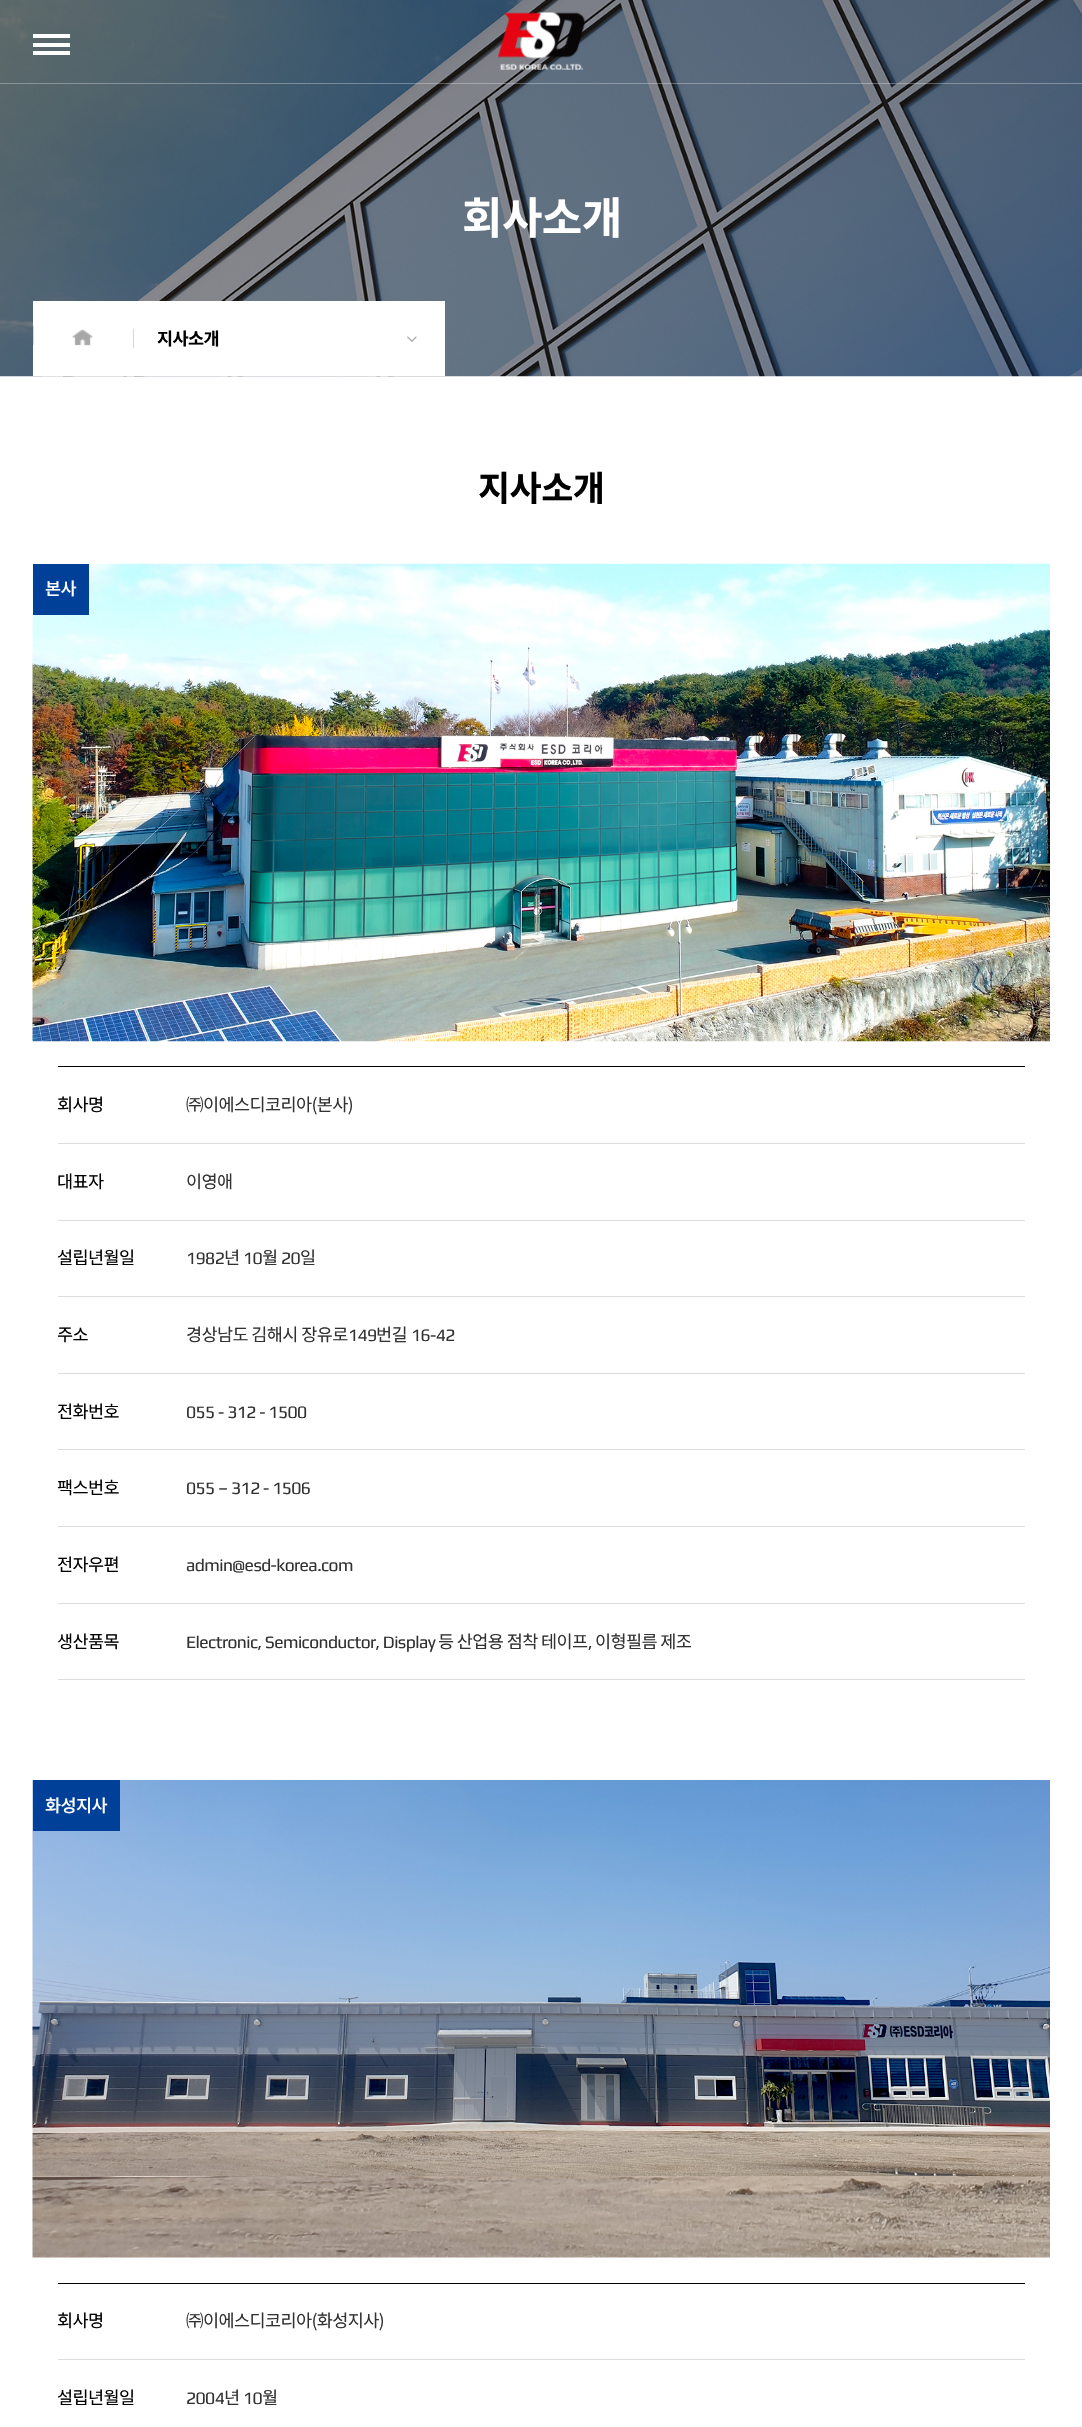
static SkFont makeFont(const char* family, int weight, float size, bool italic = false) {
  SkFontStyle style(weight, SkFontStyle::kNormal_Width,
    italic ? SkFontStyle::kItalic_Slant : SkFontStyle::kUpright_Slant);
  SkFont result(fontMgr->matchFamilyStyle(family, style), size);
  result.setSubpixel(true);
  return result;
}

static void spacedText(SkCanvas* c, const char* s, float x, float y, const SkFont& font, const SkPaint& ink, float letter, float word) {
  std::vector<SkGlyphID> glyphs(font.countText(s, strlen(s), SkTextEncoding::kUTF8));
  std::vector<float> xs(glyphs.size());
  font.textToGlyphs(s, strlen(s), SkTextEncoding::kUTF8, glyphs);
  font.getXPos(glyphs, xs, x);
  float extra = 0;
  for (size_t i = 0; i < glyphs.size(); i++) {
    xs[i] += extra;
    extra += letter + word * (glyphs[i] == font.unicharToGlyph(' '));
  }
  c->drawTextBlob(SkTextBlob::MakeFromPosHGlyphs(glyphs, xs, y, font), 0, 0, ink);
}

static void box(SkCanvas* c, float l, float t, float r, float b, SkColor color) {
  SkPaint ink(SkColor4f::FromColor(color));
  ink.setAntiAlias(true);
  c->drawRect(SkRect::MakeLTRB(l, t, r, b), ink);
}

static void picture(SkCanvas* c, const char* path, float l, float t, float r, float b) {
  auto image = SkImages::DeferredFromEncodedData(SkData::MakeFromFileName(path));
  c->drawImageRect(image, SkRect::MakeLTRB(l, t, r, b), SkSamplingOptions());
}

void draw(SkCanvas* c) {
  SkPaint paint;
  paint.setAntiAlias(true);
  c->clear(0xffffffff);
  picture(c, "img_02.png", 0, 0, 1082, 377);
  box(c, 0, 83, 1082, 84, 0x4dffffff);
  box(c, 33, 34, 70, 38, 0xffffffff);
  box(c, 33, 43, 70, 47, 0xffffffff);
  box(c, 33, 51, 70, 55, 0xffffffff);
  picture(c, "img_01.png", 498, 12, 586, 70);
  SkFont face1 = makeFont("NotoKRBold", 700, 44);
  paint.setColor(0xffffffff);
  spacedText(c, "회사소개", 462, 234, face1, paint, -0.6f, 0);
  box(c, 33, 301, 445, 376, 0xffffffff);
  box(c, 33, 326, 34, 345, 0xffd6d6d6);
  picture(c, "img_03.png", 72, 329, 93, 346);
  box(c, 133, 329, 134, 348, 0xffd6d6d6);
  SkFont face2 = makeFont("NotoKRBold", 700, 17.5f);
  paint.setColor(0xff000000);
  spacedText(c, "지사소개", 157, 345, face2, paint, -0.6f, 0);
  picture(c, "img_04.png", 407, 336, 417, 342);
  SkFont face3 = makeFont("NotoKRBold", 700, 35);
  spacedText(c, "지사소개", 478, 501, face3, paint, -0.6f, 0);
  picture(c, "img_05.png", 32, 563, 1050, 1042);
  box(c, 33, 564, 89, 615, 0xff004098);
  SkFont face4 = makeFont("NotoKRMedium", 500, 17.5f);
  paint.setColor(0xffffffff);
  spacedText(c, "본사", 45, 595, face4, paint, -0.6f, 0);
  box(c, 58, 1066, 1025, 1067, 0xff000000);
  box(c, 58, 1143, 1025, 1144, 0xffdddddd);
  SkFont face5 = makeFont("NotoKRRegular", 400, 17.5f);
  paint.setColor(0xff000000);
  spacedText(c, "회사명", 57, 1111, face5, paint, -0.6f, 0);
  SkFont face6 = makeFont("Noto Sans SC", 400, 17.5f);
  paint.setColor(0xff323232);
  spacedText(c, "㈜", 186, 1111, face6, paint, -0.6f, 0);
  spacedText(c, "이에스디코리아(본사)", 203, 1111, face5, paint, -0.6f, 0);
  box(c, 58, 1220, 1025, 1221, 0xffdddddd);
  paint.setColor(0xff000000);
  spacedText(c, "대표자", 57, 1188, face5, paint, -0.6f, 0);
  paint.setColor(0xff323232);
  spacedText(c, "이영애", 186, 1188, face5, paint, -0.6f, 0);
  box(c, 58, 1296, 1025, 1297, 0xffdddddd);
  paint.setColor(0xff000000);
  spacedText(c, "설립년월일", 57, 1264, face5, paint, -0.6f, 0);
  SkFont face7 = makeFont("Play", 400, 17.5f);
  paint.setColor(0xff323232);
  spacedText(c, "1982", 186, 1264, face7, paint, -0.6f, 0);
  spacedText(c, "년", 224, 1264, face5, paint, -0.6f, 0);
  spacedText(c, "10", 243, 1264, face7, paint, -0.6f, 0);
  spacedText(c, "월", 262, 1264, face5, paint, -0.6f, 0);
  spacedText(c, "20", 281, 1264, face7, paint, -0.6f, 0);
  spacedText(c, "일", 300, 1264, face5, paint, -0.6f, 0);
  box(c, 58, 1373, 1025, 1374, 0xffdddddd);
  paint.setColor(0xff000000);
  spacedText(c, "주소", 57, 1341, face5, paint, -0.6f, 0);
  paint.setColor(0xff323232);
  spacedText(c, "경상남도 김해시 장유로", 186, 1341, face5, paint, -0.6f, 0);
  spacedText(c, "149", 348, 1341, face7, paint, -0.6f, 0);
  spacedText(c, "번길", 376, 1341, face5, paint, -0.6f, 0);
  spacedText(c, "16-42", 411, 1341, face7, paint, -0.6f, 0);
  box(c, 58, 1449, 1025, 1450, 0xffdddddd);
  paint.setColor(0xff000000);
  spacedText(c, "전화번호", 57, 1418, face5, paint, -0.6f, 0);
  paint.setColor(0xff323232);
  spacedText(c, "055 - 312 - 1500", 186, 1418, face7, paint, -0.6f, 0);
  box(c, 58, 1526, 1025, 1527, 0xffdddddd);
  paint.setColor(0xff000000);
  spacedText(c, "팩스번호", 57, 1494, face5, paint, -0.6f, 0);
  paint.setColor(0xff323232);
  spacedText(c, "055 – 312 - 1506", 186, 1494, face7, paint, -0.6f, 0);
  box(c, 58, 1603, 1025, 1604, 0xffdddddd);
  paint.setColor(0xff000000);
  spacedText(c, "전자우편", 57, 1571, face5, paint, -0.6f, 0);
  paint.setColor(0xff323232);
  spacedText(c, "admin@esd-korea.com", 186, 1571, face7, paint, -0.6f, 0);
  box(c, 58, 1679, 1025, 1680, 0xffdddddd);
  paint.setColor(0xff000000);
  spacedText(c, "생산품목", 57, 1648, face5, paint, -0.6f, 0);
  paint.setColor(0xff323232);
  spacedText(c, "Electronic, Semiconductor, Display", 186, 1648, face7, paint, -0.6f, 0);
  spacedText(c, "등 산업용 점착 테이프", 438, 1648, face5, paint, -0.6f, 0);
  spacedText(c, ",", 588, 1648, face7, paint, -0.6f, 0);
  spacedText(c, "이형필름 제조", 595, 1648, face5, paint, -0.6f, 0);
  picture(c, "img_06.png", 32, 1780, 1050, 2258);
  box(c, 33, 1780, 120, 1831, 0xff004098);
  paint.setColor(0xffffffff);
  spacedText(c, "화성지사", 45, 1812, face4, paint, -0.6f, 0);
  box(c, 58, 2283, 1025, 2284, 0xff000000);
  box(c, 58, 2359, 1025, 2360, 0xffdddddd);
  paint.setColor(0xff000000);
  spacedText(c, "회사명", 57, 2327, face5, paint, -0.6f, 0);
  paint.setColor(0xff323232);
  spacedText(c, "㈜", 186, 2327, face6, paint, -0.6f, 0);
  spacedText(c, "이에스디코리아(화성지사)", 203, 2327, face5, paint, -0.6f, 0);
  paint.setColor(0xff000000);
  spacedText(c, "설립년월일", 57, 2404, face5, paint, -0.6f, 0);
  paint.setColor(0xff323232);
  spacedText(c, "2004", 186, 2404, face7, paint, -0.6f, 0);
  spacedText(c, "년", 224, 2404, face5, paint, -0.6f, 0);
  spacedText(c, "10", 243, 2404, face7, paint, -0.6f, 0);
  spacedText(c, "월", 262, 2404, face5, paint, -0.6f, 0);
}
